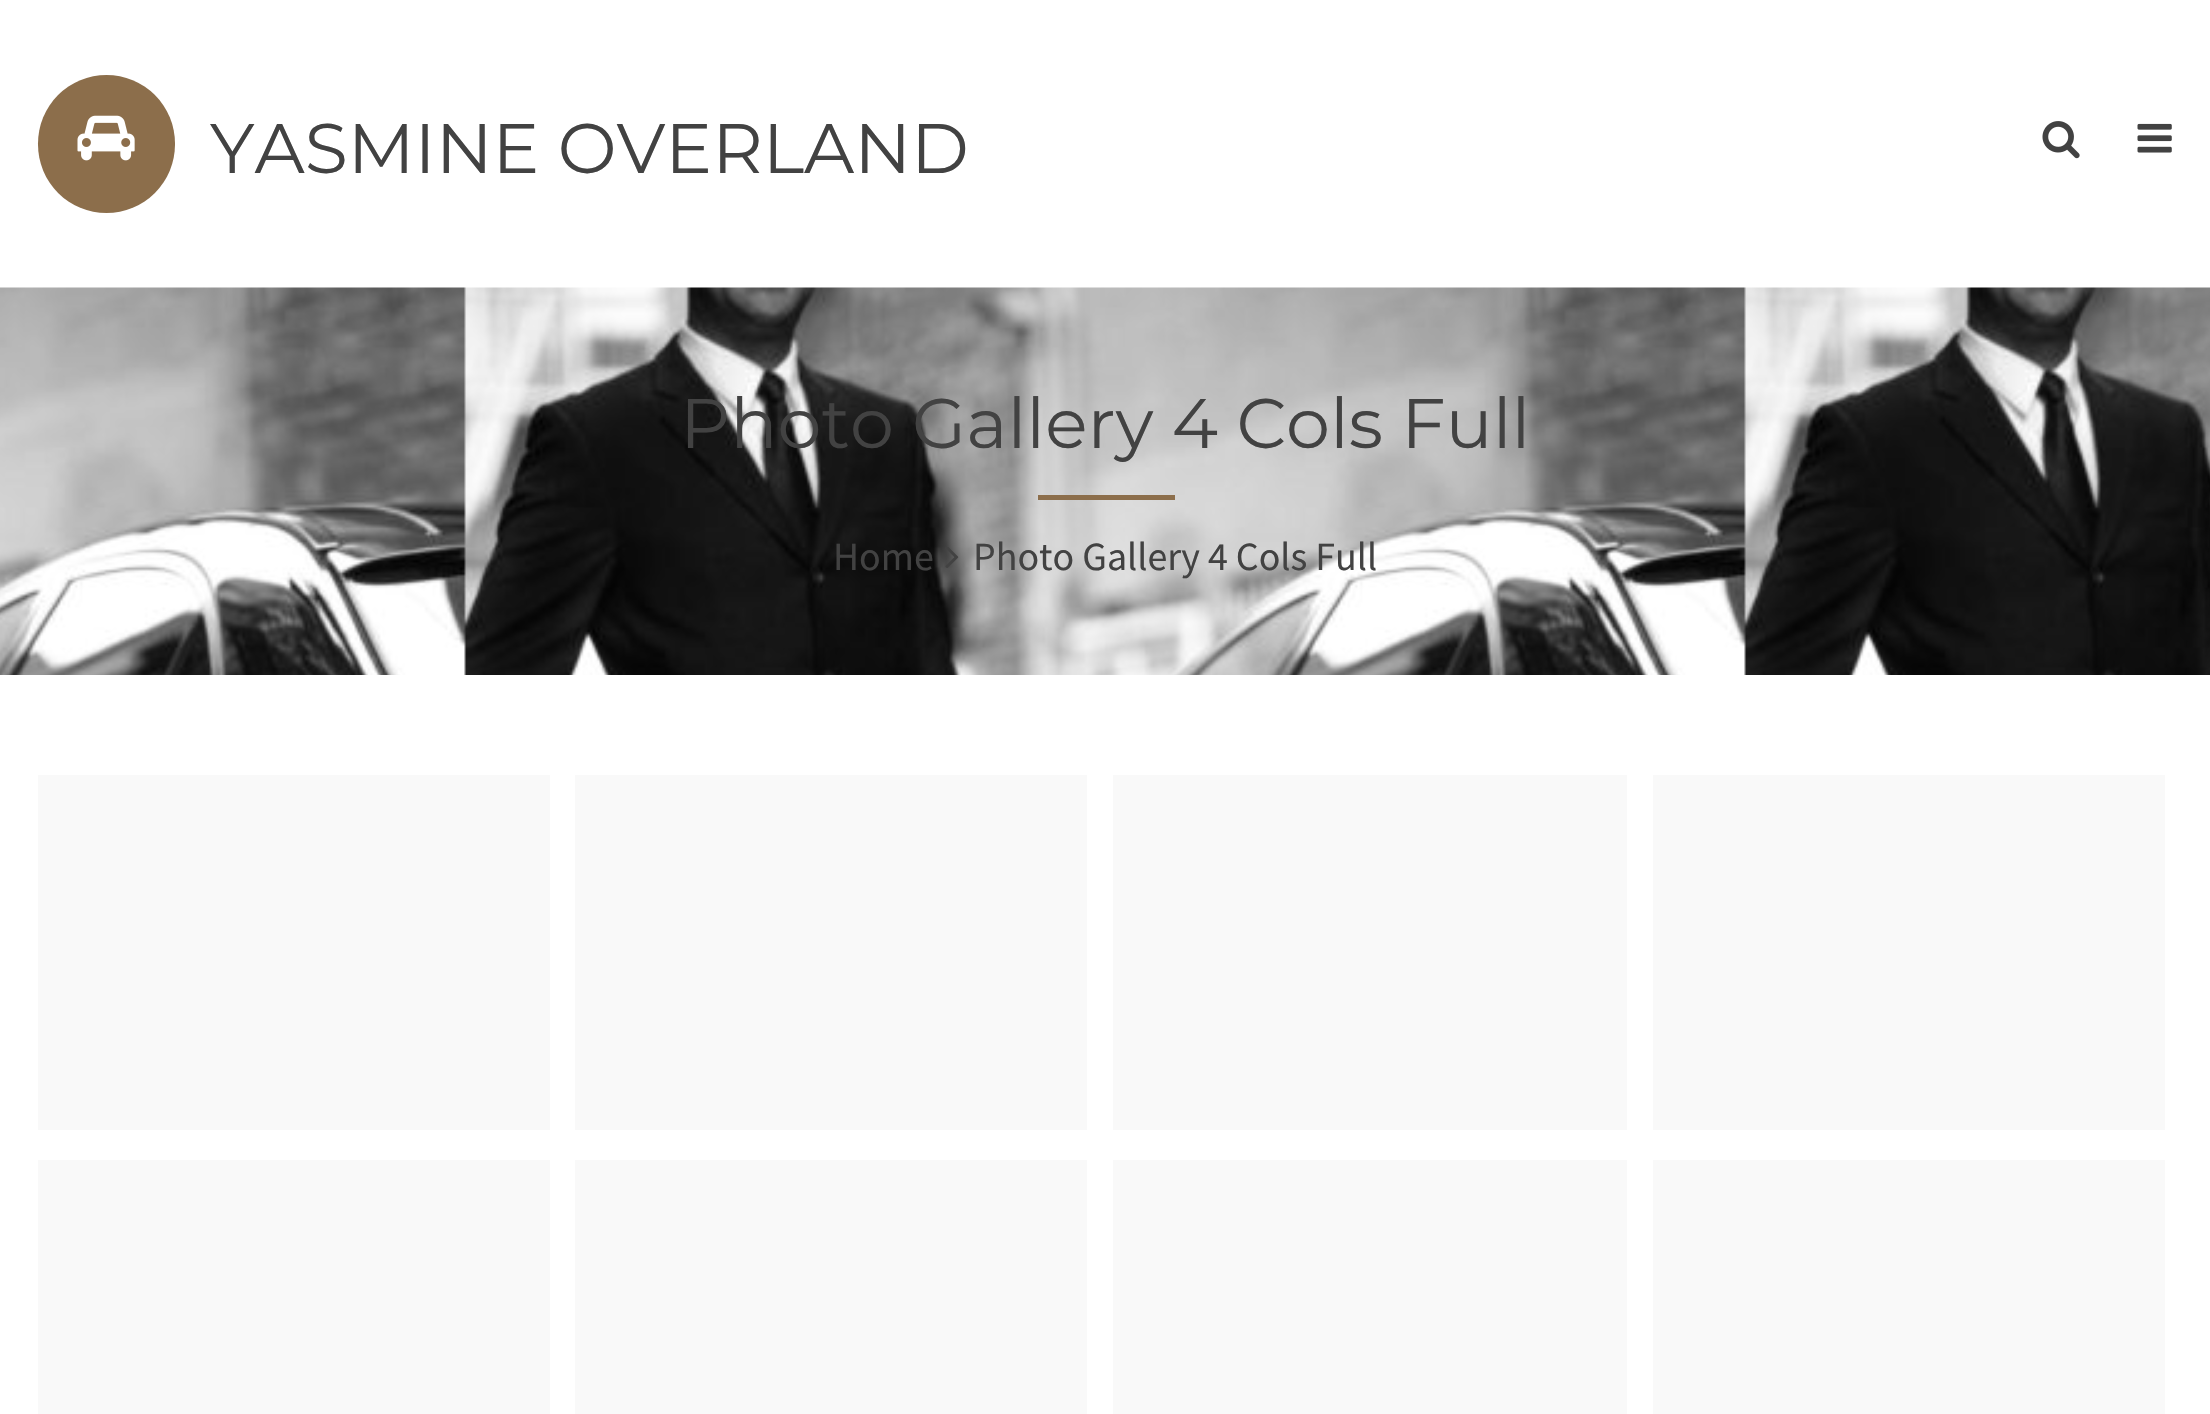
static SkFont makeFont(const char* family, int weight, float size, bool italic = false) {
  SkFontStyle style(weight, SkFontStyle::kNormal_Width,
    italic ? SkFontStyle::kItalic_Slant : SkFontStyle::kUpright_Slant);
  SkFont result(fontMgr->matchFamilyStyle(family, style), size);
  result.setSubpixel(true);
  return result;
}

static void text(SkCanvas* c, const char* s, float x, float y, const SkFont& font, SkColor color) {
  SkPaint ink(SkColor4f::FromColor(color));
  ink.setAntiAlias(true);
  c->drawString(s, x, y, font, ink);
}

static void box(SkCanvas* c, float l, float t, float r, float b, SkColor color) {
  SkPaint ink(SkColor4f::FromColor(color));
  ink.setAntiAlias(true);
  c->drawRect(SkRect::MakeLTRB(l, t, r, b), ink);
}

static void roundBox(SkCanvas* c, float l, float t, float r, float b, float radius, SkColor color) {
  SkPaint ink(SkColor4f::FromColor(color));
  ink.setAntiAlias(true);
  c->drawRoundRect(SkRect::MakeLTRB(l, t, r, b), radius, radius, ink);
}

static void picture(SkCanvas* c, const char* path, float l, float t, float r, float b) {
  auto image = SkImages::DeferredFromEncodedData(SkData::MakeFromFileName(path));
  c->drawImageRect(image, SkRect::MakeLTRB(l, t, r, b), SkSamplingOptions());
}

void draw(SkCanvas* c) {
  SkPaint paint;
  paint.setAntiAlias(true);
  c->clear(0xffffffff);
  roundBox(c, 38, 75, 175, 213, 68.5f, 0xff8c6e4b);
  picture(c, "img_01.png", 77, 115, 135, 161);
  SkFont face1 = makeFont("Montserrat", 400, 70);
  text(c, "YASMINE OVERLAND", 210, 173, face1, 0xff424242);
  picture(c, "img_02.png", 2042, 121, 2080, 159);
  picture(c, "img_03.png", 2137, 123, 2172, 153);
  picture(c, "img_04.png", 0, 287, 2210, 675);
  text(c, "Photo Gallery 4 Cols Full", 680, 448, face1, 0xff424242);
  box(c, 1038, 495, 1175, 500, 0xff8c6e4b);
  SkFont face2 = makeFont("Source Sans Pro", 400, 40);
  text(c, "Home", 833, 570, face2, 0xff424242);
  picture(c, "img_05.png", 945, 547, 959, 568);
  text(c, "Photo Gallery 4 Cols Full", 973, 570, face2, 0xff424242);
  box(c, 38, 775, 550, 1130, 0xfff9f9f9);
  box(c, 575, 775, 1087, 1130, 0xfff9f9f9);
  box(c, 1113, 775, 1627, 1130, 0xfff9f9f9);
  box(c, 1653, 775, 2165, 1130, 0xfff9f9f9);
  box(c, 38, 1160, 550, 1414, 0xfff9f9f9);
  box(c, 575, 1160, 1087, 1414, 0xfff9f9f9);
  box(c, 1113, 1160, 1627, 1414, 0xfff9f9f9);
  box(c, 1653, 1160, 2165, 1414, 0xfff9f9f9);
}
